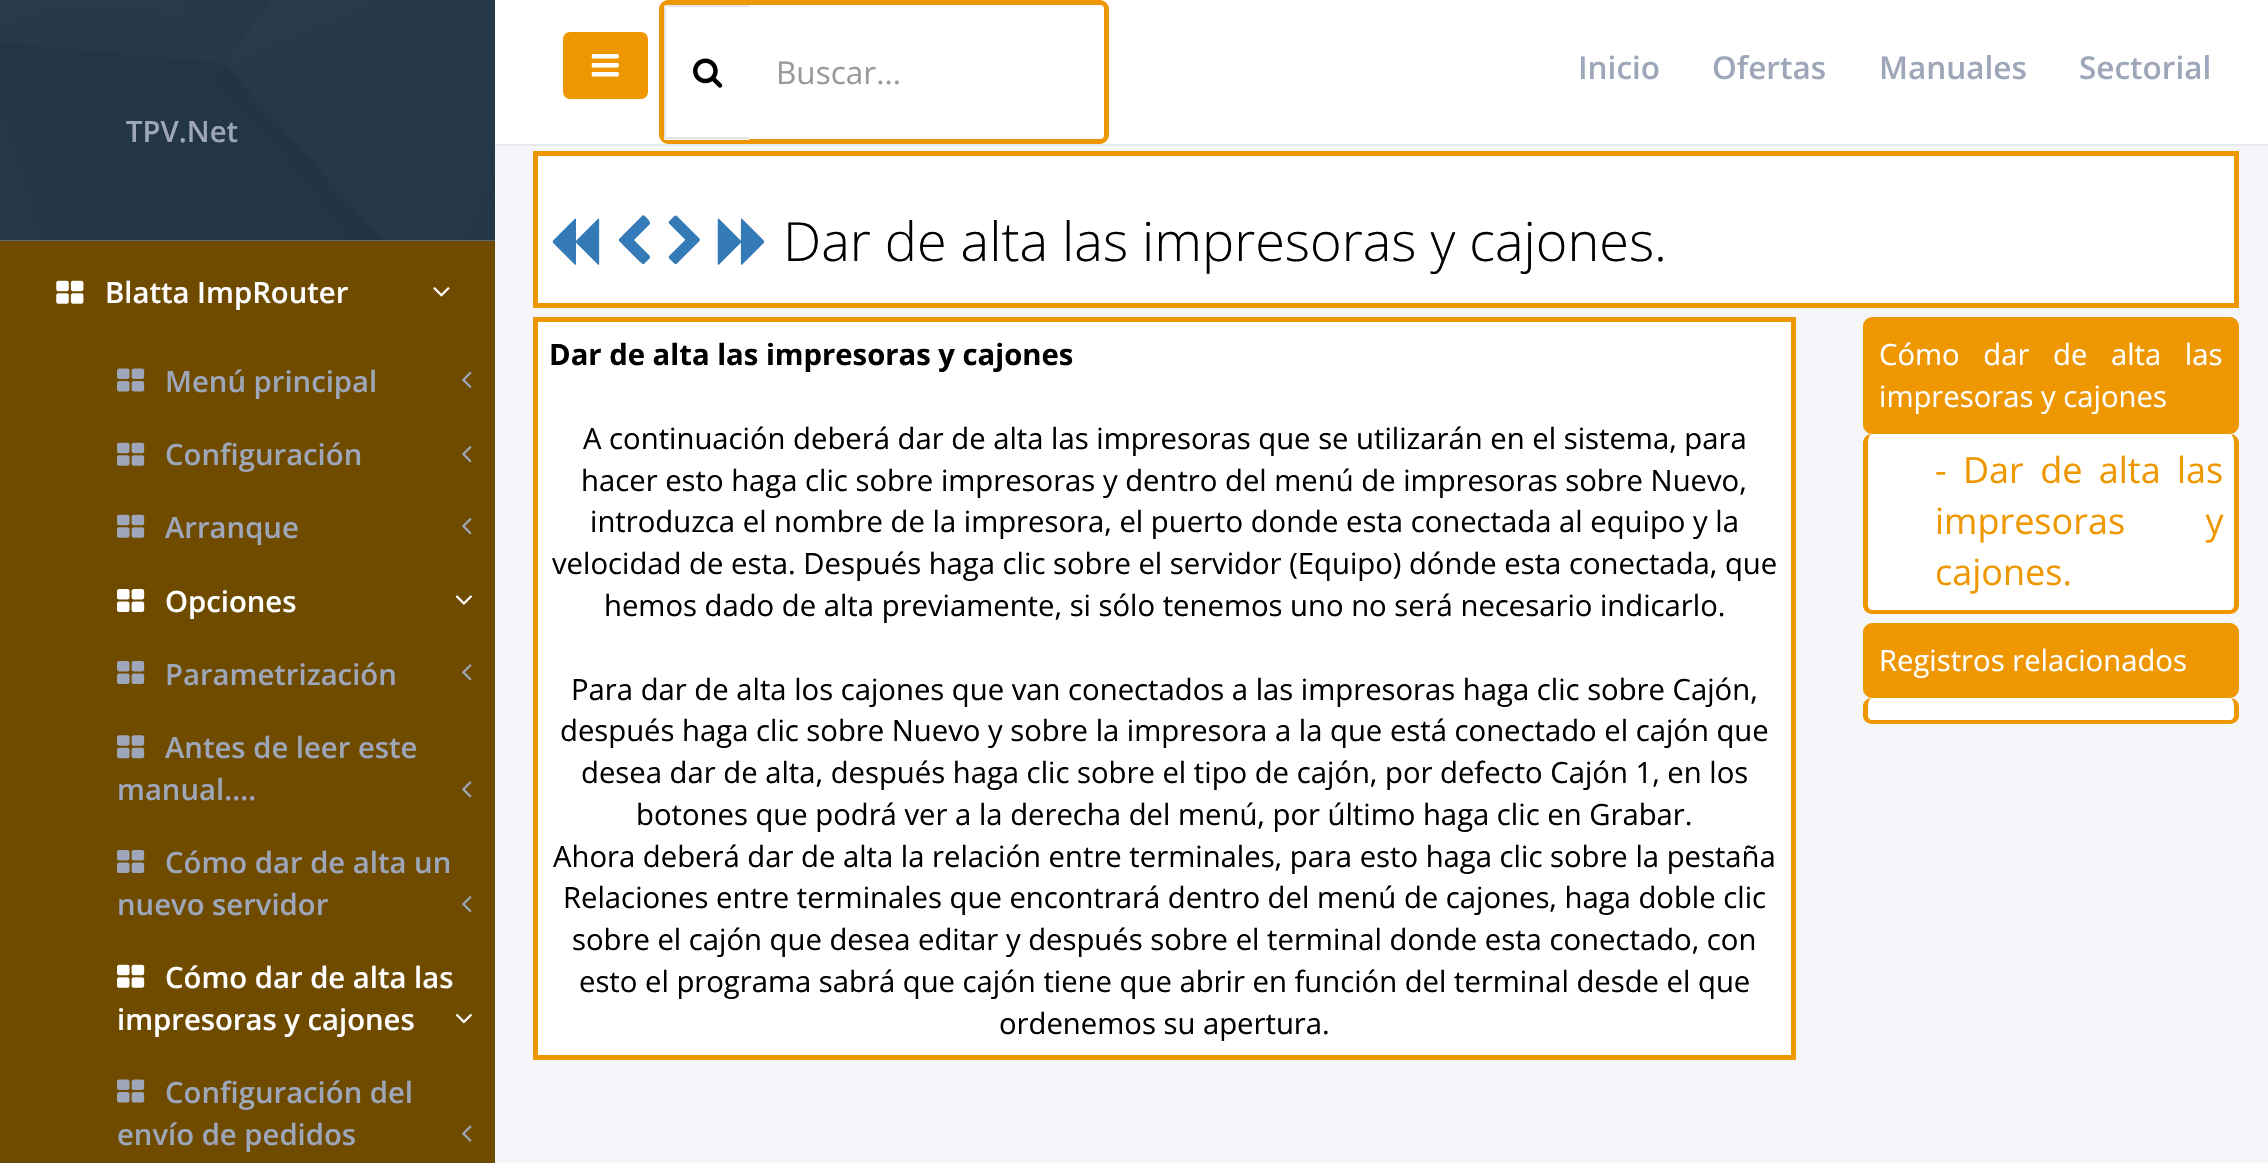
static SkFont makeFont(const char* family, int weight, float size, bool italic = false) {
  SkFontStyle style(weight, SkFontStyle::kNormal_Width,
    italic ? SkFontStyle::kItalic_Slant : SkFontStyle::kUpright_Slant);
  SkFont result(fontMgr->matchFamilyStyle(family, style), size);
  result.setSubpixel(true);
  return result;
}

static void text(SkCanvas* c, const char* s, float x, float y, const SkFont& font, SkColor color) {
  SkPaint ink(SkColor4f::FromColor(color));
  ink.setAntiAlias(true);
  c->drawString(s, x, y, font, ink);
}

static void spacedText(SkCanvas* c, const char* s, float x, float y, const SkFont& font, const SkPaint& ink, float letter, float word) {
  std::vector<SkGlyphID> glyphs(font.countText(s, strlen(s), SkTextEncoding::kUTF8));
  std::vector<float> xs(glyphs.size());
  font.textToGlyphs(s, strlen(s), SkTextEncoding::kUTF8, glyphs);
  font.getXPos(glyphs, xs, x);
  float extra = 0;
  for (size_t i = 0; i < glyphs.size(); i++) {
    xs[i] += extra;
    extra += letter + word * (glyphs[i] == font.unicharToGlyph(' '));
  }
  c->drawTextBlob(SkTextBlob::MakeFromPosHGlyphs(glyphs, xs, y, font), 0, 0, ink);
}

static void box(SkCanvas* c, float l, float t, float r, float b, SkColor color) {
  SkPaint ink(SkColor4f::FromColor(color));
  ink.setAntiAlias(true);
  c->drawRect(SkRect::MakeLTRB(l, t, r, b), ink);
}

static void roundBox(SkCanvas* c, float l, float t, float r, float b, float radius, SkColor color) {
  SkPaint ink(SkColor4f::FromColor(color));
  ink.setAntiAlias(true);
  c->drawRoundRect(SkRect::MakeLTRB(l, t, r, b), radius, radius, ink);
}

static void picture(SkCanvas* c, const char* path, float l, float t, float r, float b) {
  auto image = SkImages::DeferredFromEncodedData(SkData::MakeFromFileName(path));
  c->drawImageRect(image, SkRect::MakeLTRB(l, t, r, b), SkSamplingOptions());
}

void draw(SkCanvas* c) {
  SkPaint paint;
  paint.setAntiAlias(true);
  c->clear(0xffffffff);
  picture(c, "img_01.png", 0, 0, 495, 241);
  SkFont face1 = makeFont("Open Sans", 600, 29.25f);
  text(c, "TPV.Net", 126, 142, face1, 0xff9ea6b9);
  box(c, 0, 241, 495, 1163, 0xff6f4b00);
  picture(c, "img_02.png", 56, 280, 84, 304);
  text(c, "Blatta ImpRouter", 105, 303, face1, 0xffffffff);
  picture(c, "img_03.png", 433, 287, 450, 297);
  picture(c, "img_04.png", 117, 368, 145, 392);
  text(c, "Menú principal", 165, 392, face1, 0xff9ea6b9);
  picture(c, "img_05.png", 462, 371, 472, 388);
  picture(c, "img_06.png", 117, 442, 145, 466);
  text(c, "Configuración", 165, 465, face1, 0xff9ea6b9);
  picture(c, "img_07.png", 462, 446, 472, 463);
  picture(c, "img_06.png", 117, 514, 145, 538);
  text(c, "Arranque", 165, 538, face1, 0xff9ea6b9);
  picture(c, "img_07.png", 462, 518, 472, 535);
  picture(c, "img_08.png", 117, 589, 145, 612);
  text(c, "Opciones", 165, 612, face1, 0xffffffff);
  picture(c, "img_09.png", 455, 595, 472, 605);
  picture(c, "img_10.png", 117, 661, 145, 684);
  text(c, "Parametrización", 165, 685, face1, 0xff9ea6b9);
  picture(c, "img_11.png", 462, 664, 472, 681);
  picture(c, "img_12.png", 117, 735, 145, 759);
  text(c, "Antes de leer este", 165, 758, face1, 0xff9ea6b9);
  text(c, "manual....", 117, 800, face1, 0xff9ea6b9);
  picture(c, "img_11.png", 462, 781, 472, 798);
  picture(c, "img_10.png", 117, 850, 145, 873);
  text(c, "Cómo dar de alta un", 165, 873, face1, 0xff9ea6b9);
  text(c, "nuevo servidor", 117, 915, face1, 0xff9ea6b9);
  picture(c, "img_07.png", 462, 896, 472, 913);
  picture(c, "img_13.png", 117, 964, 145, 988);
  text(c, "Cómo dar de alta las", 165, 988, face1, 0xffffffff);
  text(c, "impresoras y cajones", 117, 1030, face1, 0xffffffff);
  picture(c, "img_14.png", 455, 1013, 472, 1024);
  picture(c, "img_04.png", 117, 1079, 145, 1103);
  text(c, "Configuración del", 165, 1103, face1, 0xff9ea6b9);
  text(c, "envío de pedidos", 117, 1145, face1, 0xff9ea6b9);
  picture(c, "img_15.png", 462, 1125, 472, 1142);
  box(c, 495, 146, 2268, 1163, 0xfff4f6fa);
  box(c, 495, 144, 2268, 146, 0xffe7eaec);
  paint.setColor(0xffee9700);
  c->drawRoundRect(SkRect::MakeLTRB(564, 33, 647, 98), 6, 6, paint);
  paint.setStyle(SkPaint::kStroke_Style);
  paint.setStrokeWidth(2);
  c->drawRoundRect(SkRect::MakeLTRB(564, 33, 647, 98), 6, 6, paint);
  picture(c, "img_16.png", 591, 54, 619, 77);
  paint.setStrokeWidth(5);
  c->drawRoundRect(SkRect::MakeLTRB(661.5f, 2.5f, 1106.5f, 141.5f), 6.5f, 6.5f, paint);
  paint.setStyle(SkPaint::kFill_Style);
  paint.setColor(0xffffffff);
  c->drawPath(SkPathBuilder().moveTo(666, 5).lineTo(749, 5).lineTo(749, 140).lineTo(666, 140).cubicTo(665, 140, 664, 139, 664, 138).lineTo(664, 7).cubicTo(664, 6, 665, 5, 666, 5).close().detach(), paint);
  box(c, 666, 5, 749, 7, 0xffe5e6e7);
  box(c, 666, 137, 749, 139, 0xffe5e6e7);
  box(c, 664, 7, 666, 140, 0xffe5e6e7);
  picture(c, "img_17.png", 693, 58, 723, 88);
  SkFont face2 = makeFont("Open Sans", 400, 31.5f);
  text(c, "Buscar...", 776, 84, face2, 0xff999999);
  SkFont face3 = makeFont("Open Sans", 600, 31.5f);
  text(c, "Inicio", 1578, 79, face3, 0xff9ea6b9);
  text(c, "Ofertas", 1712, 79, face3, 0xff9ea6b9);
  text(c, "Manuales", 1879, 79, face3, 0xff9ea6b9);
  text(c, "Sectorial", 2079, 79, face3, 0xff9ea6b9);
  c->drawRect(SkRect::MakeLTRB(535.5f, 153.5f, 2236.5f, 305.5f), paint);
  paint.setStyle(SkPaint::kStroke_Style);
  paint.setColor(0xffee9700);
  c->drawRect(SkRect::MakeLTRB(535.5f, 153.5f, 2236.5f, 305.5f), paint);
  picture(c, "img_18.png", 552, 218, 600, 265);
  paint.setStyle(SkPaint::kFill_Style);
  paint.setColor(0xff337ab7);
  c->drawPath(SkPathBuilder().moveTo(650, 224).lineTo(634, 240).lineTo(647, 253).cubicTo(651, 257, 651, 257, 648, 260).cubicTo(642, 266, 644, 265, 638, 260).lineTo(619, 241).lineTo(619, 239).lineTo(642, 216).cubicTo(644, 214, 645, 217, 647, 218).lineTo(650, 222).cubicTo(650, 222, 650, 223, 650, 224).close().detach(), paint);
  picture(c, "img_19.png", 668, 215, 700, 265);
  picture(c, "img_20.png", 717, 218, 765, 265);
  SkFont face4 = makeFont("Open Sans", 300, 54);
  text(c, "Dar de alta las impresoras y cajones.", 783, 261, face4, 0xff000000);
  paint.setColor(0xffffffff);
  c->drawRect(SkRect::MakeLTRB(535.5f, 319.5f, 1793.5f, 1057.5f), paint);
  paint.setStyle(SkPaint::kStroke_Style);
  paint.setColor(0xffee9700);
  c->drawRect(SkRect::MakeLTRB(535.5f, 319.5f, 1793.5f, 1057.5f), paint);
  SkFont face5 = makeFont("Open Sans", 700, 29.25f);
  text(c, "Dar de alta las impresoras y cajones", 549, 365, face5, 0xff000000);
  SkFont face6 = makeFont("Open Sans", 400, 29.25f);
  text(c, "A continuación deberá dar de alta las impresoras que se utilizarán en el sistema, para", 583, 449, face6, 0xff000000);
  text(c, "hacer esto haga clic sobre impresoras y dentro del menú de impresoras sobre Nuevo,", 581, 491, face6, 0xff000000);
  text(c, "introduzca el nombre de la impresora, el puerto donde esta conectada al equipo y la", 590, 532, face6, 0xff000000);
  text(c, "velocidad de esta. Después haga clic sobre el servidor (Equipo) dónde esta conectada, que", 552, 574, face6, 0xff000000);
  text(c, "hemos dado de alta previamente, si sólo tenemos uno no será necesario indicarlo.", 604, 616, face6, 0xff000000);
  text(c, "Para dar de alta los cajones que van conectados a las impresoras haga clic sobre Cajón,", 571, 700, face6, 0xff000000);
  text(c, "después haga clic sobre Nuevo y sobre la impresora a la que está conectado el cajón que", 560, 741, face6, 0xff000000);
  text(c, "desea dar de alta, después haga clic sobre el tipo de cajón, por defecto Cajón 1, en los", 581, 783, face6, 0xff000000);
  text(c, "botones que podrá ver a la derecha del menú, por último haga clic en Grabar.", 636, 825, face6, 0xff000000);
  text(c, "Ahora deberá dar de alta la relación entre terminales, para esto haga clic sobre la pestaña", 553, 867, face6, 0xff000000);
  text(c, "Relaciones entre terminales que encontrará dentro del menú de cajones, haga doble clic", 563, 908, face6, 0xff000000);
  text(c, "sobre el cajón que desea editar y después sobre el terminal donde esta conectado, con", 572, 950, face6, 0xff000000);
  text(c, "esto el programa sabrá que cajón tiene que abrir en función del terminal desde el que", 579, 992, face6, 0xff000000);
  text(c, "ordenemos su apertura.", 999, 1034, face6, 0xff000000);
  paint.setStyle(SkPaint::kFill_Style);
  c->drawRoundRect(SkRect::MakeLTRB(1865.5f, 319.5f, 2236.5f, 431.5f), 6.5f, 6.5f, paint);
  paint.setStyle(SkPaint::kStroke_Style);
  c->drawRoundRect(SkRect::MakeLTRB(1865.5f, 319.5f, 2236.5f, 431.5f), 6.5f, 6.5f, paint);
  paint.setStyle(SkPaint::kFill_Style);
  paint.setColor(0xffffffff);
  spacedText(c, "Cómo dar de alta las", 1879, 365, face6, paint, 0, 16);
  text(c, "impresoras y cajones", 1879, 407, face6, 0xffffffff);
  roundBox(c, 1863, 434, 2239, 614, 9, 0xffffffff);
  paint.setColor(0xffee9700);
  c->drawPath(SkPathBuilder(SkPathFillType::kEvenOdd).moveTo(1872, 434).lineTo(2230, 434).cubicTo(2235, 434, 2239, 438, 2239, 443).lineTo(2239, 605).cubicTo(2239, 610, 2235, 614, 2230, 614).lineTo(1872, 614).cubicTo(1867, 614, 1863, 610, 1863, 605).lineTo(1863, 443).cubicTo(1863, 438, 1867, 434, 1872, 434).close().moveTo(1872, 434).lineTo(2230, 434).cubicTo(2232, 434, 2234, 438, 2234, 443).lineTo(2234, 605).cubicTo(2234, 608, 2232, 610, 2230, 610).lineTo(1872, 610).cubicTo(1870, 610, 1868, 608, 1868, 605).lineTo(1868, 443).cubicTo(1868, 438, 1870, 434, 1872, 434).close().detach(), paint);
  SkFont face7 = makeFont("Open Sans", 400, 36);
  spacedText(c, "- Dar de alta las", 1935, 483, face7, paint, 0, 7);
  spacedText(c, "impresoras y", 1935, 534, face7, paint, 0, 71);
  text(c, "cajones.", 1935, 585, face7, 0xffee9700);
  c->drawRoundRect(SkRect::MakeLTRB(1865.5f, 625.5f, 2236.5f, 695.5f), 6.5f, 6.5f, paint);
  paint.setStyle(SkPaint::kStroke_Style);
  c->drawRoundRect(SkRect::MakeLTRB(1865.5f, 625.5f, 2236.5f, 695.5f), 6.5f, 6.5f, paint);
  text(c, "Registros relacionados", 1879, 671, face6, 0xffffffff);
  roundBox(c, 1863, 698, 2239, 725, 9, 0xffffffff);
  paint.setStyle(SkPaint::kFill_Style);
  c->drawPath(SkPathBuilder(SkPathFillType::kEvenOdd).moveTo(1872, 698).lineTo(2230, 698).cubicTo(2235, 698, 2239, 702, 2239, 706).lineTo(2239, 716).cubicTo(2239, 720, 2235, 724, 2230, 724).lineTo(1872, 724).cubicTo(1867, 724, 1863, 720, 1863, 716).lineTo(1863, 706).cubicTo(1863, 702, 1867, 698, 1872, 698).close().moveTo(1872, 698).lineTo(2230, 698).cubicTo(2232, 698, 2234, 702, 2234, 706).lineTo(2234, 716).cubicTo(2234, 718, 2232, 720, 2230, 720).lineTo(1872, 720).cubicTo(1870, 720, 1868, 718, 1868, 716).lineTo(1868, 706).cubicTo(1868, 702, 1870, 698, 1872, 698).close().detach(), paint);
}
